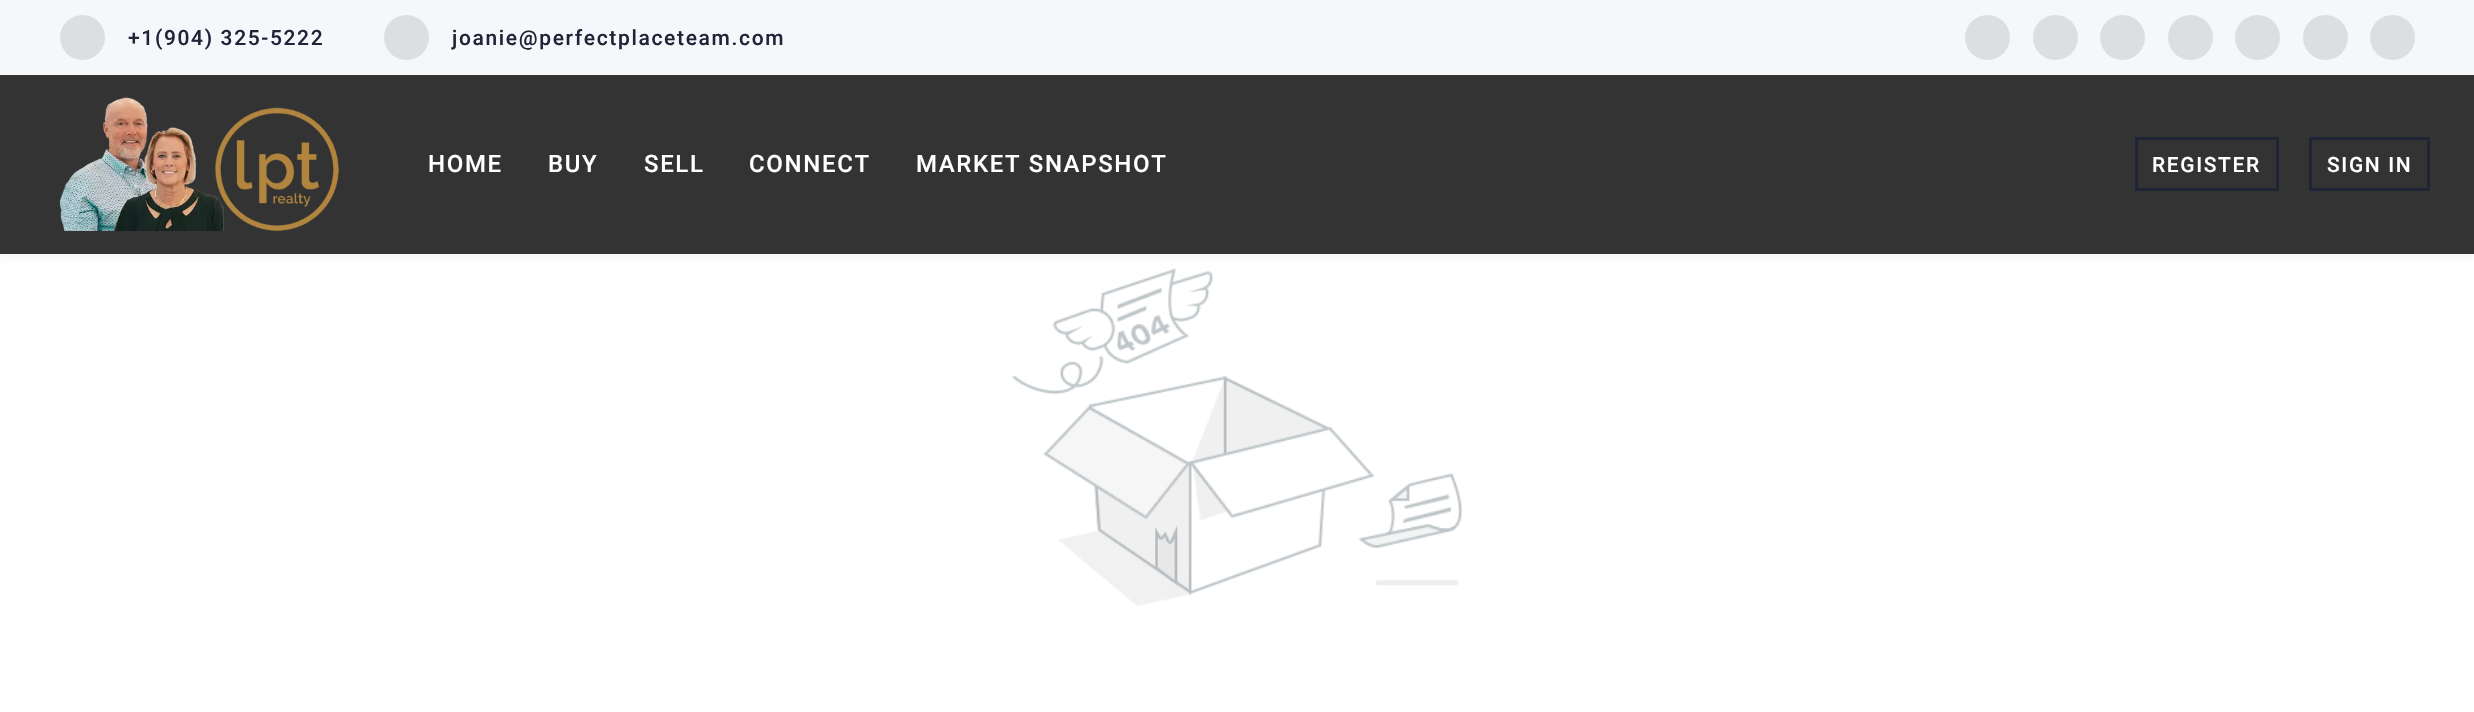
static SkFont makeFont(const char* family, int weight, float size, bool italic = false) {
  SkFontStyle style(weight, SkFontStyle::kNormal_Width,
    italic ? SkFontStyle::kItalic_Slant : SkFontStyle::kUpright_Slant);
  SkFont result(fontMgr->matchFamilyStyle(family, style), size);
  result.setSubpixel(true);
  return result;
}

static void spacedText(SkCanvas* c, const char* s, float x, float y, const SkFont& font, const SkPaint& ink, float letter, float word) {
  std::vector<SkGlyphID> glyphs(font.countText(s, strlen(s), SkTextEncoding::kUTF8));
  std::vector<float> xs(glyphs.size());
  font.textToGlyphs(s, strlen(s), SkTextEncoding::kUTF8, glyphs);
  font.getXPos(glyphs, xs, x);
  float extra = 0;
  for (size_t i = 0; i < glyphs.size(); i++) {
    xs[i] += extra;
    extra += letter + word * (glyphs[i] == font.unicharToGlyph(' '));
  }
  c->drawTextBlob(SkTextBlob::MakeFromPosHGlyphs(glyphs, xs, y, font), 0, 0, ink);
}

static void box(SkCanvas* c, float l, float t, float r, float b, SkColor color) {
  SkPaint ink(SkColor4f::FromColor(color));
  ink.setAntiAlias(true);
  c->drawRect(SkRect::MakeLTRB(l, t, r, b), ink);
}

static void picture(SkCanvas* c, const char* path, float l, float t, float r, float b) {
  auto image = SkImages::DeferredFromEncodedData(SkData::MakeFromFileName(path));
  c->drawImageRect(image, SkRect::MakeLTRB(l, t, r, b), SkSamplingOptions());
}

void draw(SkCanvas* c) {
  SkPaint paint;
  paint.setAntiAlias(true);
  c->clear(0xffffffff);
  picture(c, "img_02.png", 1012, 268, 1463, 606);
  paint.setColor(0x0d000000);
  paint.setMaskFilter(SkMaskFilter::MakeBlur(kNormal_SkBlurStyle, 4));
  c->drawRect(SkRect::MakeLTRB(0, 3, 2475, 257), paint);
  paint.setMaskFilter(nullptr);
  box(c, 0, 0, 2474, 75, 0xfff6f7fb);
  paint.setColor(0xffdddee2);
  c->drawCircle(82.5f, 37.5f, 22.5f, paint);
  SkFont face1 = makeFont("Roboto", 500, 21);
  paint.setColor(0xff202437);
  spacedText(c, "+1(904) 325-5222", 128, 45, face1, paint, 1.65f, 0);
  paint.setColor(0xffdddee2);
  c->drawCircle(406.5f, 37.5f, 22.5f, paint);
  paint.setColor(0xff202437);
  spacedText(c, "joanie@perfectplaceteam.com", 452, 45, face1, paint, 1.65f, 0);
  paint.setColor(0xffdddee2);
  c->drawCircle(1987.5f, 37.5f, 22.5f, paint);
  c->drawCircle(2055.5f, 37.5f, 22.5f, paint);
  c->drawCircle(2122.5f, 37.5f, 22.5f, paint);
  c->drawCircle(2190.5f, 37.5f, 22.5f, paint);
  c->drawCircle(2257.5f, 37.5f, 22.5f, paint);
  c->drawCircle(2325.5f, 37.5f, 22.5f, paint);
  c->drawCircle(2392.5f, 37.5f, 22.5f, paint);
  box(c, 0, 75, 2474, 254, 0xff333333);
  picture(c, "img_01.png", 60, 97, 339, 231);
  SkFont face2 = makeFont("Roboto", 500, 24);
  paint.setColor(0xffffffff);
  spacedText(c, "HOME", 428, 172, face2, paint, 1.65f, 0);
  spacedText(c, "BUY", 548, 172, face2, paint, 1.65f, 0);
  spacedText(c, "SELL", 644, 172, face2, paint, 1.65f, 0);
  spacedText(c, "CONNECT", 749, 172, face2, paint, 1.65f, 0);
  spacedText(c, "MARKET SNAPSHOT", 916, 172, face2, paint, 1.65f, 0);
  paint.setStyle(SkPaint::kStroke_Style);
  paint.setStrokeWidth(3);
  paint.setColor(0xff202437);
  c->drawRect(SkRect::MakeLTRB(2136.5f, 138.5f, 2277.5f, 189.5f), paint);
  paint.setStyle(SkPaint::kFill_Style);
  paint.setColor(0xffffffff);
  spacedText(c, "REGISTER", 2152, 172, face1, paint, 1.65f, 0);
  paint.setStyle(SkPaint::kStroke_Style);
  paint.setColor(0xff202437);
  c->drawRect(SkRect::MakeLTRB(2310.5f, 138.5f, 2428.5f, 189.5f), paint);
  paint.setStyle(SkPaint::kFill_Style);
  paint.setColor(0xffffffff);
  spacedText(c, "SIGN IN", 2327, 172, face1, paint, 1.65f, 0);
}
